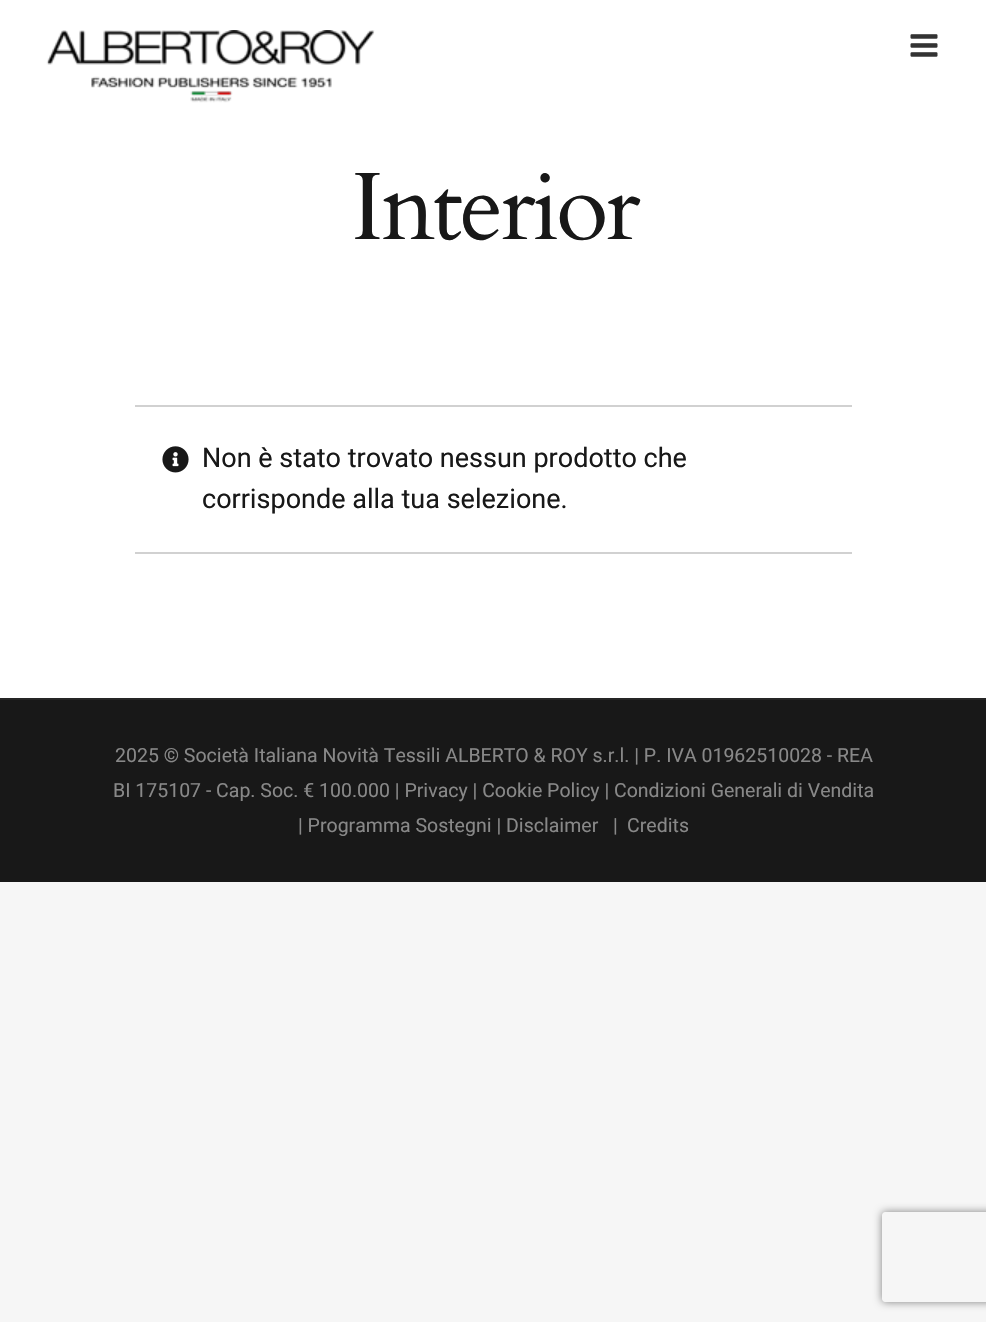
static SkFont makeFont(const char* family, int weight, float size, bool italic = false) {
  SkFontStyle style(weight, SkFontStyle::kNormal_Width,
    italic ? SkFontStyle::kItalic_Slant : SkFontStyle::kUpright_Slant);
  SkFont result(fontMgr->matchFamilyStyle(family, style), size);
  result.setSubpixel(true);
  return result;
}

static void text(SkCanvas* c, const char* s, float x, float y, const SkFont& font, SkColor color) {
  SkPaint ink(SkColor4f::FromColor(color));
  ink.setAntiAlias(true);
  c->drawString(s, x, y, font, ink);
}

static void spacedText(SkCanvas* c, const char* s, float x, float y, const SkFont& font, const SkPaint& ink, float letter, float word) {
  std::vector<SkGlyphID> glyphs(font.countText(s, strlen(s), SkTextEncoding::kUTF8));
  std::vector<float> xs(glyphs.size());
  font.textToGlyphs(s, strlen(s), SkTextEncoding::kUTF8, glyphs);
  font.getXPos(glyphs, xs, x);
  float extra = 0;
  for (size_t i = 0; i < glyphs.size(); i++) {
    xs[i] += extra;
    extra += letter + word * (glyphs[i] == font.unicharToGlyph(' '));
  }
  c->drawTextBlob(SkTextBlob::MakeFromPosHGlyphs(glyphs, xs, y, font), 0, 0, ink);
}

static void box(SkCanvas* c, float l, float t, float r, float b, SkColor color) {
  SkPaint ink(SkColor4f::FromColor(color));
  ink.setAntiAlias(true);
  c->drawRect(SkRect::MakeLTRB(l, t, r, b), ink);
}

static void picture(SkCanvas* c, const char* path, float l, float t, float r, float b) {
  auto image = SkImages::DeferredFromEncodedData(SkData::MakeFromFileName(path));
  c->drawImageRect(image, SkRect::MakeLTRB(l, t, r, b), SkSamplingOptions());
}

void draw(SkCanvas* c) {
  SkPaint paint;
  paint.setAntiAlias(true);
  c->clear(0xfff6f6f6);
  box(c, 0, 0, 986, 698, 0xffffffff);
  picture(c, "img_01.png", 46, 30, 375, 103);
  picture(c, "img_02.png", 910, 34, 938, 57);
  SkFont face1 = makeFont("Cardo", 400, 96);
  paint.setColor(0xff181818);
  spacedText(c, "Interior", 351, 239, face1, paint, -3, 0);
  box(c, 135, 405, 852, 407, 0xffd1d1d1);
  box(c, 135, 552, 852, 554, 0xffd1d1d1);
  picture(c, "img_03.png", 162, 446, 189, 473);
  SkFont face2 = makeFont("Heebo", 400, 27);
  text(c, "Non è stato trovato nessun prodotto che", 202, 467, face2, 0xff181818);
  text(c, "corrisponde alla tua selezione.", 202, 508, face2, 0xff181818);
  box(c, 0, 700, 986, 882, 0xff181818);
  box(c, 0, 698, 986, 700, 0xff252525);
  SkFont face3 = makeFont("Heebo", 400, 19.5f);
  text(c, "2025 © Società Italiana Novità Tessili ALBERTO & ROY s.r.l. | P. IVA 01962510028 - REA", 115, 762, face3, 0xff888888);
  text(c, "BI 175107 - Cap. Soc. € 100.000 | Privacy | Cookie Policy | Condizioni Generali di Vendita", 113, 797, face3, 0xff888888);
  text(c, "| Programma Sostegni | Disclaimer", 298, 832, face3, 0xff888888);
  text(c, "|", 613, 832, face3, 0xff888888);
  text(c, "Credits", 627, 832, face3, 0xff888888);
  c->save();
  c->clipPath(SkPathBuilder(SkPathFillType::kEvenOdd).moveTo(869, 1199).lineTo(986, 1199).lineTo(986, 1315).lineTo(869, 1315).close().moveTo(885, 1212).lineTo(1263, 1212).cubicTo(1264.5f, 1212, 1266, 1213.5f, 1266, 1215).lineTo(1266, 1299).cubicTo(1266, 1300.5f, 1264.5f, 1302, 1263, 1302).lineTo(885, 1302).cubicTo(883.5f, 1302, 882, 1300.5f, 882, 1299).lineTo(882, 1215).cubicTo(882, 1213.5f, 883.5f, 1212, 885, 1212).close().detach(), true);
  paint.setColor(0xff808080);
  paint.setMaskFilter(SkMaskFilter::MakeBlur(kNormal_SkBlurStyle, 4));
  c->drawRoundRect(SkRect::MakeLTRB(882, 1212, 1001, 1302), 3, 3, paint);
  paint.setMaskFilter(nullptr);
  c->restore();
}
